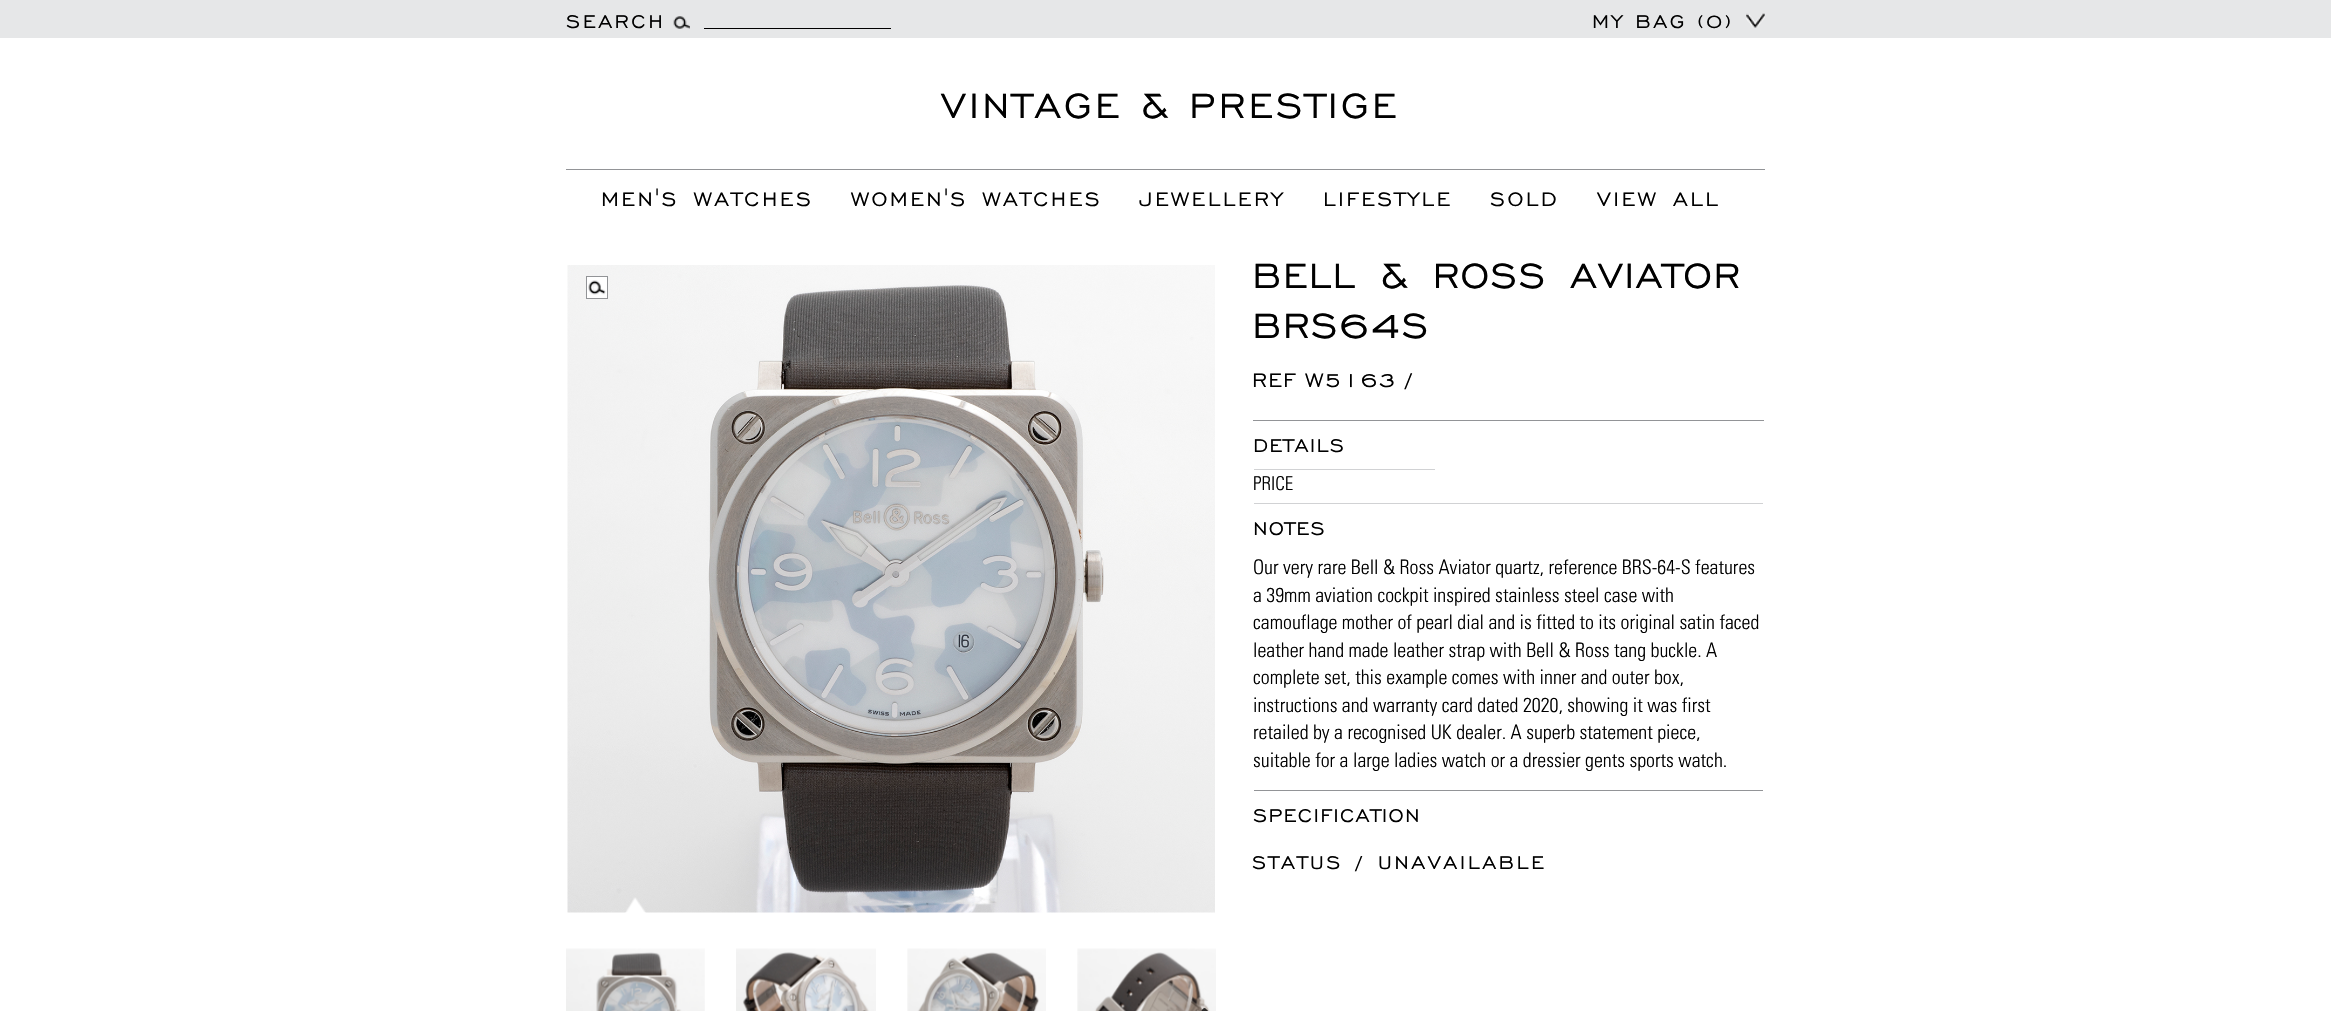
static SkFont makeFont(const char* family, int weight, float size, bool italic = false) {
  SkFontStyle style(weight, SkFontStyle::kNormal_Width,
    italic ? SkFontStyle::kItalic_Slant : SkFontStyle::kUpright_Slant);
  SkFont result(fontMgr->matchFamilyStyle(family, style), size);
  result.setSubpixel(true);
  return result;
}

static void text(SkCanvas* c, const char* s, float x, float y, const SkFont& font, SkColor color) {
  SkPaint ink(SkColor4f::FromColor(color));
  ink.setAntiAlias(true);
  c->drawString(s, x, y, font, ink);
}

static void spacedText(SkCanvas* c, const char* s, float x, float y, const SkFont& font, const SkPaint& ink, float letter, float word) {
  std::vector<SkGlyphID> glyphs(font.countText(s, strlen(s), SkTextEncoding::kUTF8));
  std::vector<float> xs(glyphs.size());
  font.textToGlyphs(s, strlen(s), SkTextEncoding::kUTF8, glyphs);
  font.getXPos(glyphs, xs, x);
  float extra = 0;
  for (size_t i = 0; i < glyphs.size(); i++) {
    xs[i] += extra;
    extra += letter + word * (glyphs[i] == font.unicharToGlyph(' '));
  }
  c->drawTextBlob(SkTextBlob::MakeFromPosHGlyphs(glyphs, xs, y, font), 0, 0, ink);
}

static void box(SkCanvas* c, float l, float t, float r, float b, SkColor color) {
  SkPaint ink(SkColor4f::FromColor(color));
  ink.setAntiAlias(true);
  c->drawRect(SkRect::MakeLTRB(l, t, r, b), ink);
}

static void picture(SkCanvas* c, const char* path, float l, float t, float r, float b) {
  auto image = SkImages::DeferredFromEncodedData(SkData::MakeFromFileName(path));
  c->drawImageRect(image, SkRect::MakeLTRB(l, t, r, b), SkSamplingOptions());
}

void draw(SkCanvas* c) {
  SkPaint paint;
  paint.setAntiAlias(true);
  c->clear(0xffffffff);
  box(c, 0, 0, 2331, 38, 0xffe6e7e8);
  picture(c, "img_01.png", 673, 16, 690, 29);
  SkFont face1 = makeFont("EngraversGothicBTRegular", 400, 23.75f);
  paint.setColor(0xff000000);
  spacedText(c, "SEARCH", 566, 28, face1, paint, 2.5f, 0);
  box(c, 704, 28, 891, 29, 0xff000000);
  spacedText(c, "MY BAG (0)", 1592, 28, face1, paint, 2.5f, 0);
  picture(c, "img_02.png", 1746, 13, 1765, 28);
  box(c, 566, 169, 1765, 170, 0xff929497);
  SkFont face2 = makeFont("EngraversGothicBTRegular", 400, 45);
  spacedText(c, "VINTAGE & PRESTIGE", 941, 118, face2, paint, 3, 0);
  SkFont face3 = makeFont("EngraversGothicBTRegular", 400, 25);
  spacedText(c, "MEN'S WATCHES", 601, 206, face3, paint, 2.5f, 4);
  spacedText(c, "WOMEN'S WATCHES", 851, 206, face3, paint, 2.5f, 4);
  spacedText(c, "JEWELLERY", 1139, 206, face3, paint, 2.5f, 0);
  spacedText(c, "LIFESTYLE", 1323, 206, face3, paint, 2.5f, 0);
  spacedText(c, "SOLD", 1490, 206, face3, paint, 2.5f, 0);
  spacedText(c, "VIEW ALL", 1597, 206, face3, paint, 2.5f, 4);
  picture(c, "img_03.png", 567, 265, 1215, 913);
  paint.setColor(0xffffffff);
  c->drawRect(SkRect::MakeLTRB(586.5f, 276.5f, 607.5f, 298.5f), paint);
  paint.setStyle(SkPaint::kStroke_Style);
  paint.setStrokeWidth(1);
  paint.setColor(0xff929497);
  c->drawRect(SkRect::MakeLTRB(586.5f, 276.5f, 607.5f, 298.5f), paint);
  picture(c, "img_04.png", 588, 280, 606, 295);
  picture(c, "img_05.png", 625, 897, 646, 913);
  picture(c, "img_06.png", 566, 948, 705, 1011);
  picture(c, "img_07.png", 736, 948, 876, 1011);
  picture(c, "img_08.png", 907, 948, 1046, 1011);
  picture(c, "img_09.png", 1077, 948, 1216, 1011);
  picture(c, "img_10.png", 1201, 1008, 1208, 1011);
  paint.setStyle(SkPaint::kFill_Style);
  paint.setColor(0xff000000);
  spacedText(c, "BELL & ROSS AVIATOR", 1252, 288, face2, paint, 1.25f, 7.5f);
  spacedText(c, "BRS64S", 1252, 338, face2, paint, 1.25f, 0);
  spacedText(c, "REF W5163 /", 1252, 387, face3, paint, 1.25f, -1);
  box(c, 1253, 420, 1764, 421, 0xff929497);
  spacedText(c, "DETAILS", 1253, 452, face1, paint, 1.25f, 0);
  box(c, 1254, 469, 1435, 470, 0xffd1d2d4);
  SkFont face4 = makeFont("Univers", 300, 19);
  text(c, "PRICE", 1253, 490, face4, 0xff000000);
  box(c, 1254, 503, 1763, 504, 0xffd1d2d4);
  spacedText(c, "NOTES", 1253, 535, face1, paint, 1.25f, 0);
  SkFont face5 = makeFont("Univers", 300, 20);
  text(c, "Our very rare Bell & Ross Aviator quartz, reference BRS-64-S features", 1253, 574, face5, 0xff000000);
  text(c, "a 39mm aviation cockpit inspired stainless steel case with", 1253, 602, face5, 0xff000000);
  text(c, "camouflage mother of pearl dial and is fitted to its original satin faced", 1253, 629, face5, 0xff000000);
  text(c, "leather hand made leather strap with Bell & Ross tang buckle. A", 1253, 657, face5, 0xff000000);
  text(c, "complete set, this example comes with inner and outer box,", 1253, 684, face5, 0xff000000);
  text(c, "instructions and warranty card dated 2020, showing it was first", 1253, 712, face5, 0xff000000);
  text(c, "retailed by a recognised UK dealer. A superb statement piece,", 1253, 739, face5, 0xff000000);
  text(c, "suitable for a large ladies watch or a dressier gents sports watch.", 1253, 767, face5, 0xff000000);
  box(c, 1254, 790, 1763, 791, 0xff929497);
  spacedText(c, "SPECIFICATION", 1253, 822, face1, paint, 1.25f, 0);
  spacedText(c, "STATUS /", 1252, 869, face1, paint, 2.5f, 2);
  spacedText(c, "UNAVAILABLE", 1378, 869, face1, paint, 2.5f, 0);
}
